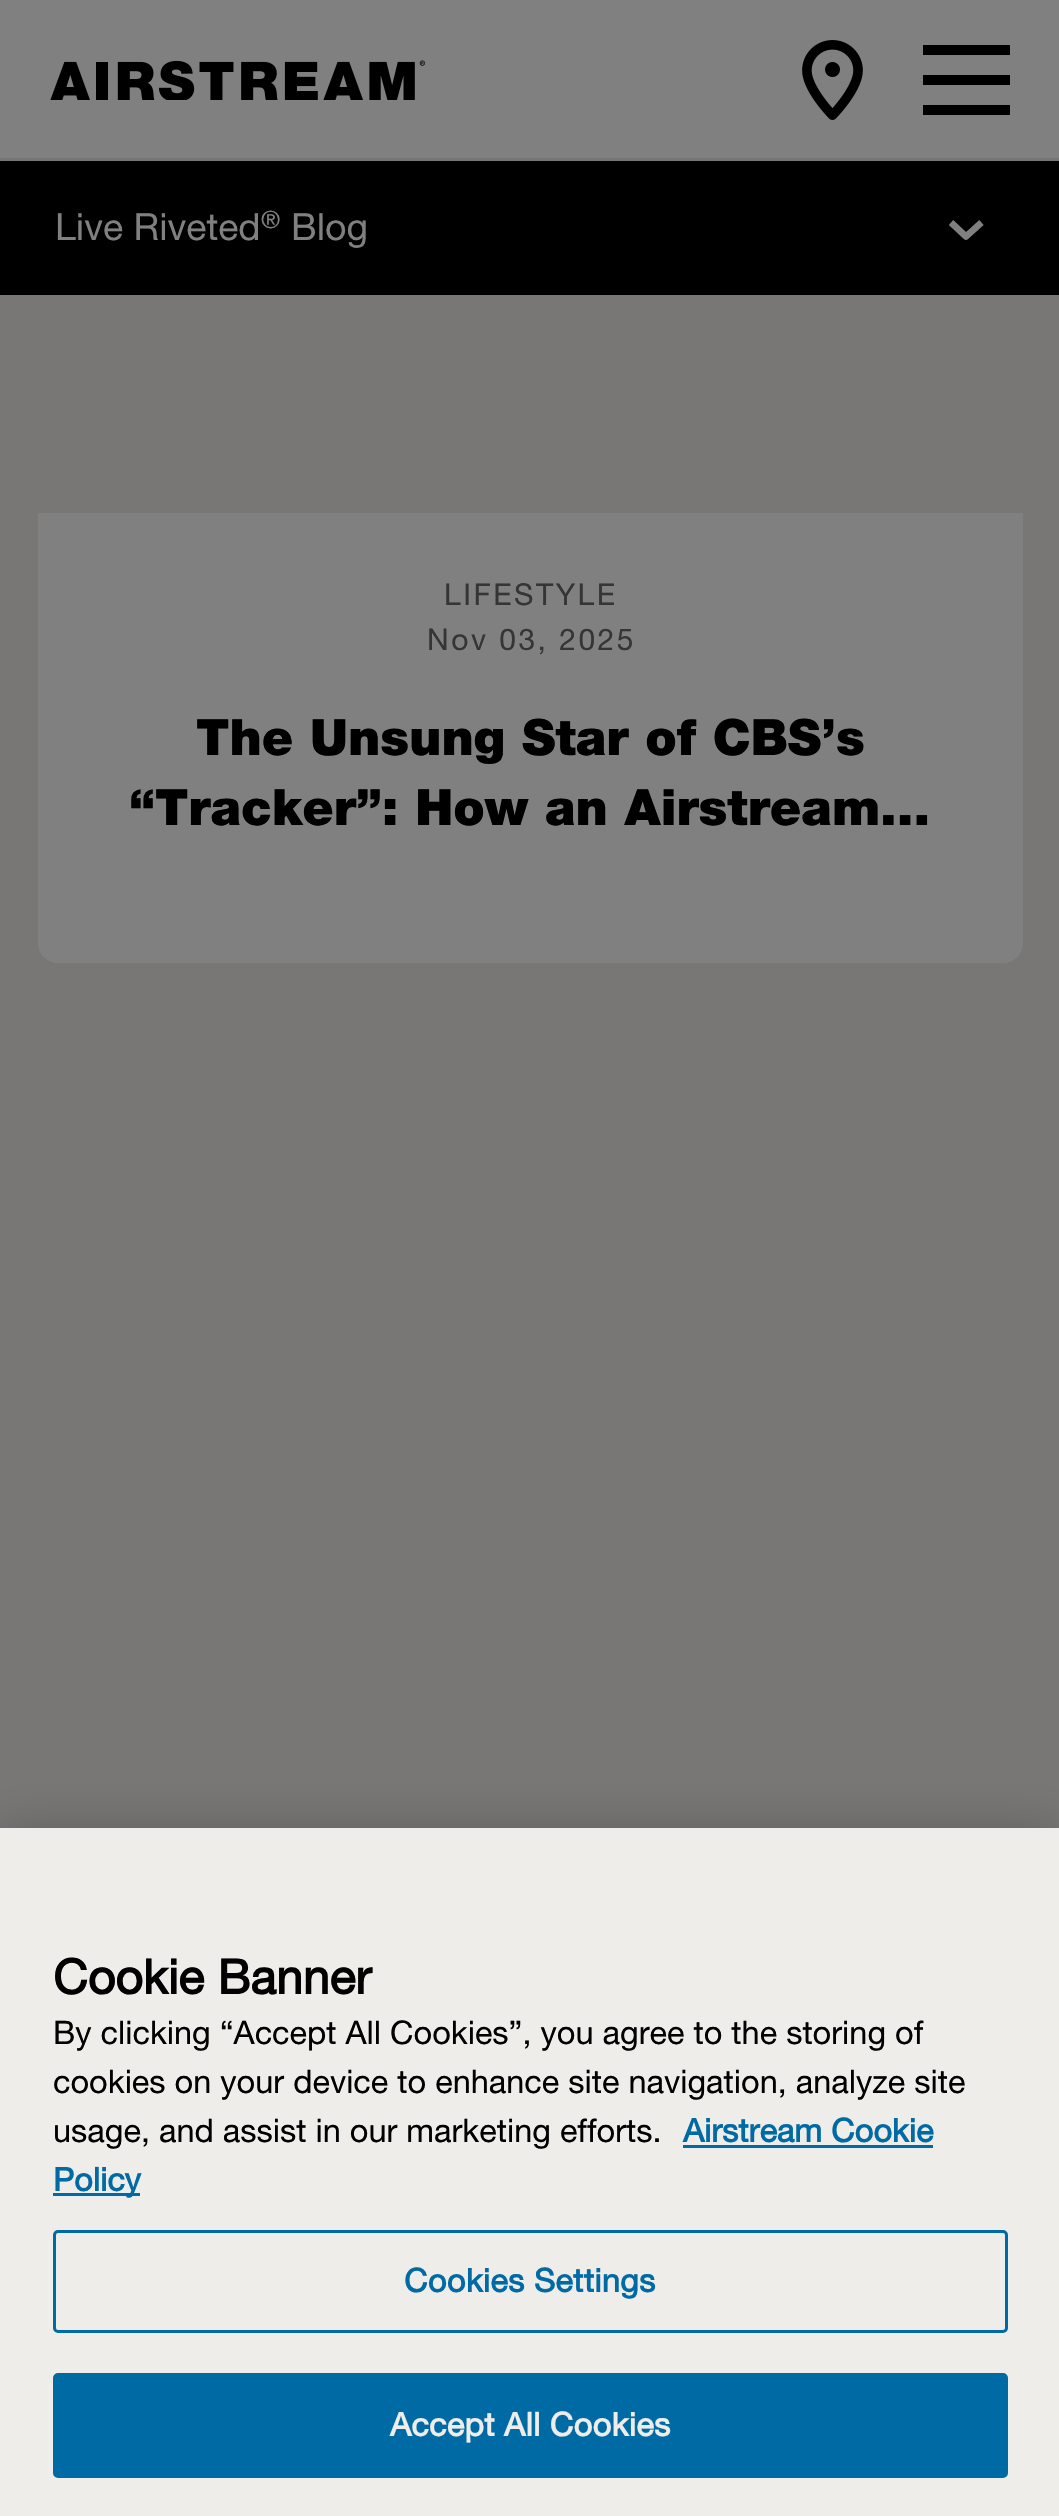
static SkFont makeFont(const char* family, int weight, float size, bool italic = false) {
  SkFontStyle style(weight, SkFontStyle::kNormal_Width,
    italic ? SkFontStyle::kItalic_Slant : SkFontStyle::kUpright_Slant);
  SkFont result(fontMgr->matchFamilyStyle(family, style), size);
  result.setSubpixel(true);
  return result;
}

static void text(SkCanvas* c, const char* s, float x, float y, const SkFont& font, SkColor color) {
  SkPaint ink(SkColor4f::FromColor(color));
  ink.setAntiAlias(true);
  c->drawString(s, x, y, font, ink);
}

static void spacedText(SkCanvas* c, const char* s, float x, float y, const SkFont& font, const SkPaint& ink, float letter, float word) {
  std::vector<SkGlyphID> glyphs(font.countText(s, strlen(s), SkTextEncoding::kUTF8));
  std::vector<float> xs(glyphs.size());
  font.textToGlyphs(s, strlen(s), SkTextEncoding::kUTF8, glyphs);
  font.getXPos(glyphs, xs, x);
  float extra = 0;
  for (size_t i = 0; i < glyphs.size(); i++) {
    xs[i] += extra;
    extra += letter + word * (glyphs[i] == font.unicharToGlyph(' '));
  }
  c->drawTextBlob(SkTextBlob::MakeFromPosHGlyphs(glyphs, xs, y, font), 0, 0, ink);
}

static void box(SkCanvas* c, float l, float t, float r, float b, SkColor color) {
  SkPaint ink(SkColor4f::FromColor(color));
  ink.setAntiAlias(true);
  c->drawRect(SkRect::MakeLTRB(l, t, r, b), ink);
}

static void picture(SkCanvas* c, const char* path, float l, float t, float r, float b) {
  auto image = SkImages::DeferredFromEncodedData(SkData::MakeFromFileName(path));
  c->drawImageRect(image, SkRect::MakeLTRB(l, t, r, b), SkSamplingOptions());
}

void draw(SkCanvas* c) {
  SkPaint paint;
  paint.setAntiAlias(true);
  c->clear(0xff787776);
  box(c, 0, 158, 1059, 161, 0xff757575);
  box(c, 0, 0, 1059, 158, 0xff808080);
  picture(c, "img_01.png", 50, 60, 425, 100);
  picture(c, "img_02.png", 802, 40, 863, 120);
  box(c, 923, 45, 1010, 55, 0xff000000);
  box(c, 923, 75, 1010, 85, 0xff000000);
  box(c, 923, 105, 1010, 115, 0xff000000);
  box(c, 0, 161, 1059, 295, 0xff000000);
  SkFont face1 = makeFont("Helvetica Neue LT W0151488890", 400, 37.5f);
  text(c, "Live Riveted", 55, 240, face1, 0xff808080);
  SkFont face2 = makeFont("Helvetica Neue LT W0151488890", 400, 24);
  text(c, "®", 261, 228, face2, 0xff808080);
  text(c, "Blog", 291, 240, face1, 0xff808080);
  paint.setStyle(SkPaint::kStroke_Style);
  paint.setStrokeWidth(6.5f);
  paint.setStrokeJoin(SkPaint::kRound_Join);
  paint.setColor(0xff808080);
  c->drawPath(SkPathBuilder().moveTo(951, 222.5f).lineTo(966, 236.5f).lineTo(981.5f, 222.5f).detach(), paint);
  paint.setStyle(SkPaint::kFill_Style);
  c->drawPath(SkPathBuilder().moveTo(38, 513).lineTo(1023, 513).lineTo(1023, 943).cubicTo(1023, 954, 1014, 963, 1003, 963).lineTo(58, 963).cubicTo(47, 963, 38, 954, 38, 943).close().detach(), paint);
  SkFont face3 = makeFont("Helvetica Neue LT W0151488890", 400, 30);
  paint.setColor(0xff353535);
  spacedText(c, "LIFESTYLE", 444, 605, face3, paint, 2.5f, 0);
  spacedText(c, "Nov 03, 2025", 427, 650, face3, paint, 2.5f, 0);
  SkFont face4 = makeFont("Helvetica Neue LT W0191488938", 900, 50);
  text(c, "The Unsung Star of CBS’s", 196, 755, face4, 0xff000000);
  text(c, "“Tracker”: How an Airstream...", 129, 825, face4, 0xff000000);
  paint.setColor(0x33000000);
  paint.setMaskFilter(SkMaskFilter::MakeBlur(kNormal_SkBlurStyle, 22.5f));
  c->drawRect(SkRect::MakeLTRB(0, 1828, 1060, 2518), paint);
  paint.setMaskFilter(nullptr);
  box(c, 0, 1828, 1059, 2516, 0xffefedea);
  SkFont face5 = makeFont("Helvetica Neue LT W0151488890", 700, 48);
  text(c, "Cookie Banner", 53, 1994, face5, 0xff000000);
  SkFont face6 = makeFont("Helvetica Neue LT W0151488890", 400, 32.5f);
  text(c, "By clicking “Accept All Cookies”, you agree to the storing of", 53, 2044, face6, 0xff000000);
  text(c, "cookies on your device to enhance site navigation, analyze site", 53, 2093, face6, 0xff000000);
  text(c, "usage, and assist in our marketing efforts.", 53, 2142, face6, 0xff000000);
  SkFont face7 = makeFont("Helvetica Neue LT W0151488890", 700, 32.5f);
  text(c, "Airstream Cookie", 683, 2142, face7, 0xff006aa5);
  box(c, 683, 2145, 933, 2148, 0xff006aa5);
  box(c, 53, 2193, 140, 2196, 0xff006aa5);
  text(c, "Policy", 53, 2191, face7, 0xff006aa5);
  paint.setStyle(SkPaint::kStroke_Style);
  paint.setStrokeWidth(3);
  paint.setStrokeJoin(SkPaint::kMiter_Join);
  paint.setColor(0xff006aa5);
  c->drawRoundRect(SkRect::MakeLTRB(54.5f, 2231.5f, 1006.5f, 2331.5f), 3.5f, 3.5f, paint);
  paint.setStyle(SkPaint::kFill_Style);
  spacedText(c, "Cookies Settings", 404, 2292, face7, paint, 0.3f, 0);
  c->drawRoundRect(SkRect::MakeLTRB(54.5f, 2374.5f, 1006.5f, 2476.5f), 3.5f, 3.5f, paint);
  paint.setStyle(SkPaint::kStroke_Style);
  c->drawRoundRect(SkRect::MakeLTRB(54.5f, 2374.5f, 1006.5f, 2476.5f), 3.5f, 3.5f, paint);
  paint.setStyle(SkPaint::kFill_Style);
  paint.setColor(0xffefedea);
  spacedText(c, "Accept All Cookies", 390, 2436, face7, paint, 0.3f, 0);
}
